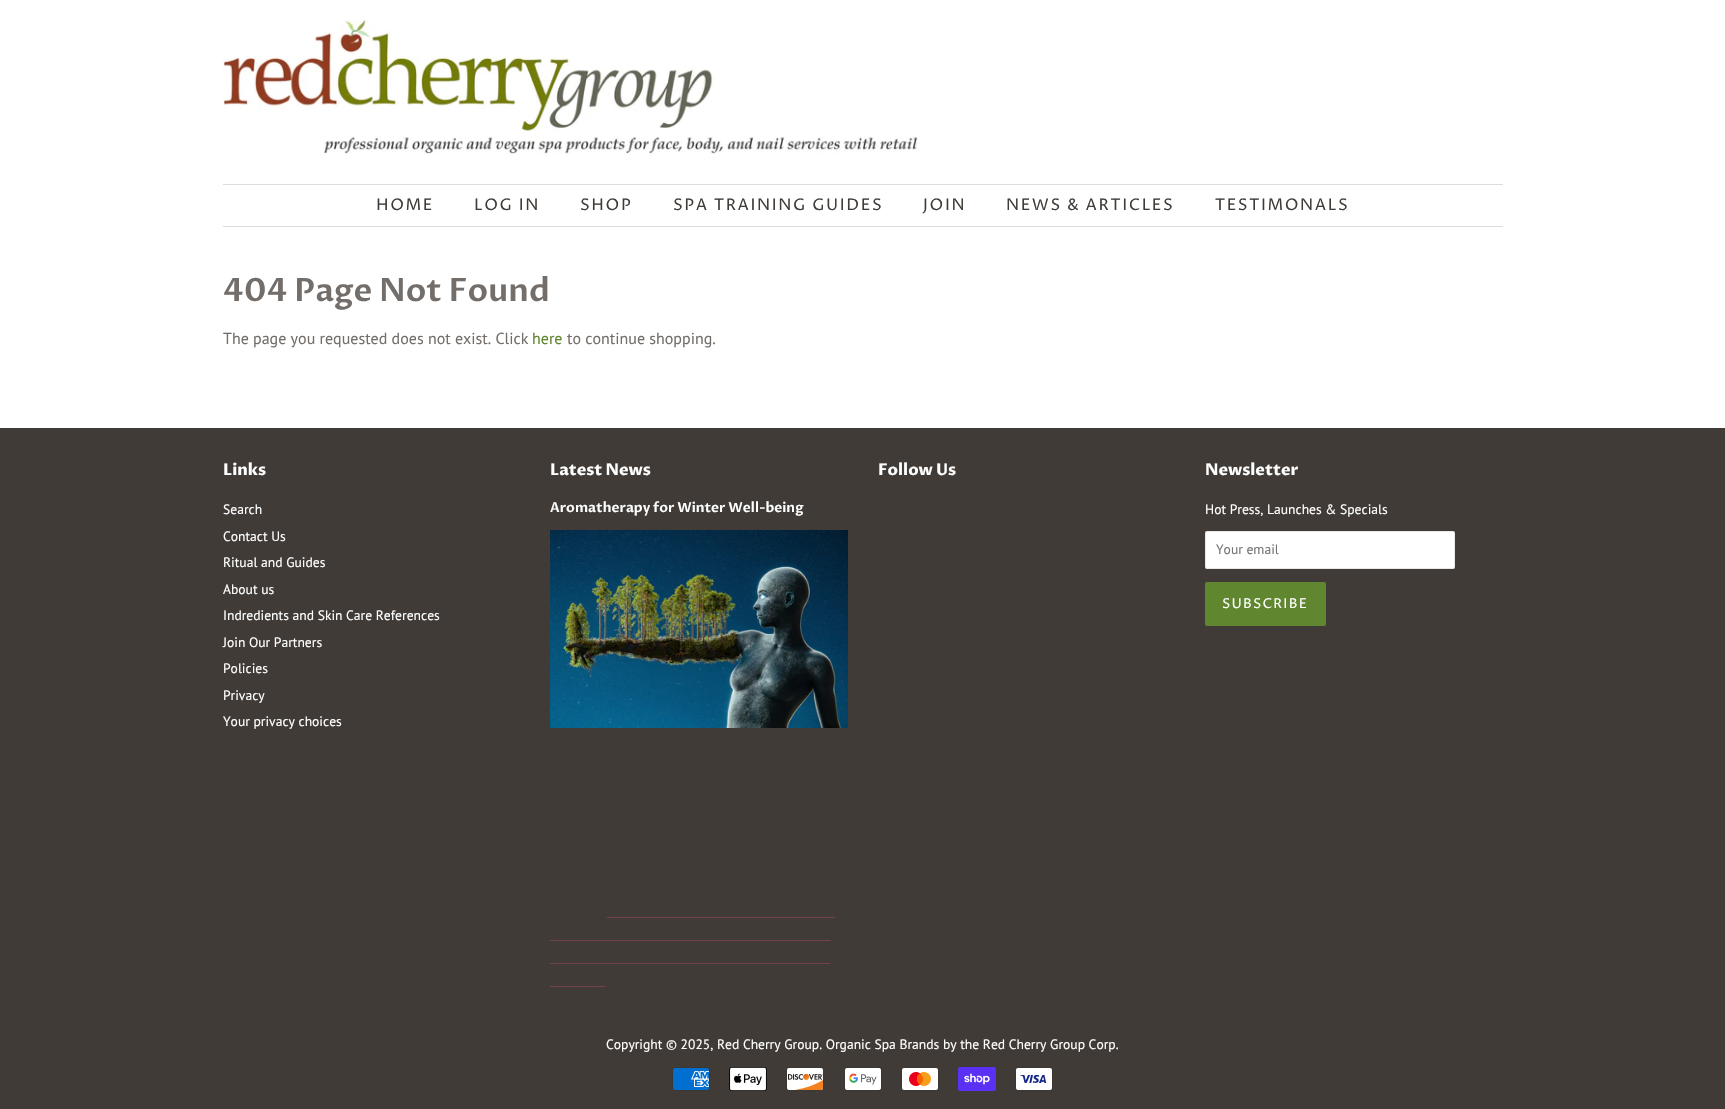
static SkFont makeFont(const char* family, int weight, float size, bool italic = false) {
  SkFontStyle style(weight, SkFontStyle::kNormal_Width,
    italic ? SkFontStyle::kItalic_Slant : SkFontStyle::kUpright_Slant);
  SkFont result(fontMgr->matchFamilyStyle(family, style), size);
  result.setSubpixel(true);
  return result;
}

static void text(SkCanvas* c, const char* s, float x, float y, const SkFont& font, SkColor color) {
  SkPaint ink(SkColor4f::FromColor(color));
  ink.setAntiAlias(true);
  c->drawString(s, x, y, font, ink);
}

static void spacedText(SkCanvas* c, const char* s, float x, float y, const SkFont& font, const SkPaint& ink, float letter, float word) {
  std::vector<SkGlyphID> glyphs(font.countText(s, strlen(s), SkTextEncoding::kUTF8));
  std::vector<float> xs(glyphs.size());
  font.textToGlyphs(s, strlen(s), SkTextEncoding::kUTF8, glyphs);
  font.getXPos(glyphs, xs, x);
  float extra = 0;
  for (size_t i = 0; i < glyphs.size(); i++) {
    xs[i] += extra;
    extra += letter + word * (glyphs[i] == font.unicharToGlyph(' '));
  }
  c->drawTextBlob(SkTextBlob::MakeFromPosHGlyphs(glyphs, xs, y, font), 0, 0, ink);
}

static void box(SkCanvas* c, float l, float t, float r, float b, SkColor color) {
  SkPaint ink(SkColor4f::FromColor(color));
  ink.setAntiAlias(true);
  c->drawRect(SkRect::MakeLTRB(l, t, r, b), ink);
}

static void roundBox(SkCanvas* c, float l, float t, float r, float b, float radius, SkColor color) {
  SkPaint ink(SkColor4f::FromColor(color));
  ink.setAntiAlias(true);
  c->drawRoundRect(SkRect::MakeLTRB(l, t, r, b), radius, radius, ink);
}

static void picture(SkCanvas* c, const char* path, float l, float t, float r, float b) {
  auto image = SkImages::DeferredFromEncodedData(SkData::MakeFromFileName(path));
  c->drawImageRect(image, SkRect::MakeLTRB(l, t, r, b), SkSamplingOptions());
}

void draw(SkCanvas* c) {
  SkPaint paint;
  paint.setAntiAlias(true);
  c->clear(0xffffffff);
  picture(c, "img_01.png", 223, 20, 918, 154);
  box(c, 223, 184, 1503, 185, 0xffdddddd);
  box(c, 223, 226, 1503, 227, 0xffdddddd);
  SkFont face1 = makeFont("Proza Libre", 400, 16);
  paint.setColor(0xff403b37);
  spacedText(c, "HOME", 376, 210, face1, paint, 1.6f, 0);
  spacedText(c, "LOG IN", 474, 210, face1, paint, 1.6f, 0);
  spacedText(c, "SHOP", 580, 210, face1, paint, 1.6f, 0);
  spacedText(c, "SPA TRAINING GUIDES", 673, 210, face1, paint, 1.6f, 0);
  spacedText(c, "JOIN", 923, 210, face1, paint, 1.6f, 0);
  spacedText(c, "NEWS & ARTICLES", 1006, 210, face1, paint, 1.6f, 0);
  spacedText(c, "TESTIMONALS", 1215, 210, face1, paint, 1.6f, 0);
  SkFont face2 = makeFont("Proza Libre", 600, 32);
  text(c, "404 Page Not Found", 223, 301, face2, 0xff746e6a);
  SkFont face3 = makeFont("PT Sans", 400, 16);
  text(c, "The page you requested does not exist. Click", 223, 344, face3, 0xff746e6a);
  text(c, "here", 532, 344, face3, 0xff60862f);
  text(c, "to continue shopping.", 567, 344, face3, 0xff746e6a);
  box(c, 0, 428, 1725, 1109, 0xff403b37);
  SkFont face4 = makeFont("Proza Libre", 700, 16);
  text(c, "Links", 223, 475, face4, 0xffffffff);
  SkFont face5 = makeFont("PT Sans", 400, 13.6f);
  text(c, "Search", 223, 514, face5, 0xffffffff);
  text(c, "Contact Us", 223, 541, face5, 0xffffffff);
  text(c, "Ritual and Guides", 223, 567, face5, 0xffffffff);
  text(c, "About us", 223, 594, face5, 0xffffffff);
  text(c, "Indredients and Skin Care References", 223, 620, face5, 0xffffffff);
  text(c, "Join Our Partners", 223, 647, face5, 0xffffffff);
  text(c, "Policies", 223, 673, face5, 0xffffffff);
  text(c, "Privacy", 223, 700, face5, 0xffffffff);
  text(c, "Your privacy choices", 223, 726, face5, 0xffffffff);
  text(c, "Latest News", 550, 475, face4, 0xffffffff);
  SkFont face6 = makeFont("Proza Libre", 600, 13.6f);
  text(c, "Aromatherapy for Winter Well-being", 550, 512, face6, 0xffffffff);
  picture(c, "img_02.png", 550, 530, 848, 728);
  box(c, 607, 917, 835, 918, 0xff74424d);
  box(c, 550, 940, 831, 941, 0xff74424d);
  box(c, 550, 963, 830, 964, 0xff74424d);
  box(c, 550, 986, 605, 987, 0xff74424d);
  text(c, "Follow Us", 878, 475, face4, 0xffffffff);
  text(c, "Newsletter", 1205, 475, face4, 0xffffffff);
  text(c, "Hot Press, Launches & Specials", 1205, 514, face5, 0xffffffff);
  roundBox(c, 1205, 531, 1455, 569, 2, 0xffffffff);
  paint.setStyle(SkPaint::kStroke_Style);
  paint.setStrokeWidth(1);
  paint.setColor(0x26746e6a);
  c->drawRoundRect(SkRect::MakeLTRB(1205.5f, 531.5f, 1454.5f, 568.5f), 1.5f, 1.5f, paint);
  text(c, "Your email", 1216, 554, face5, 0xff757575);
  roundBox(c, 1205, 582, 1326, 626, 2, 0xff60862f);
  SkFont face7 = makeFont("Proza Libre", 400, 13.6f);
  paint.setStyle(SkPaint::kFill_Style);
  paint.setColor(0xffffffff);
  spacedText(c, "SUBSCRIBE", 1222, 608, face7, paint, 1.25f, 0);
  text(c, "Copyright © 2025, Red Cherry Group. Organic Spa Brands by the Red Cherry Group Corp.", 606, 1049, face5, 0xffffffff);
  picture(c, "img_03.png", 672, 1067, 710, 1091);
  picture(c, "img_04.png", 729, 1067, 767, 1091);
  picture(c, "img_05.png", 786, 1067, 824, 1091);
  picture(c, "img_06.png", 844, 1067, 882, 1091);
  picture(c, "img_07.png", 901, 1067, 939, 1091);
  picture(c, "img_08.png", 958, 1067, 996, 1091);
  picture(c, "img_09.png", 1015, 1067, 1053, 1091);
}
